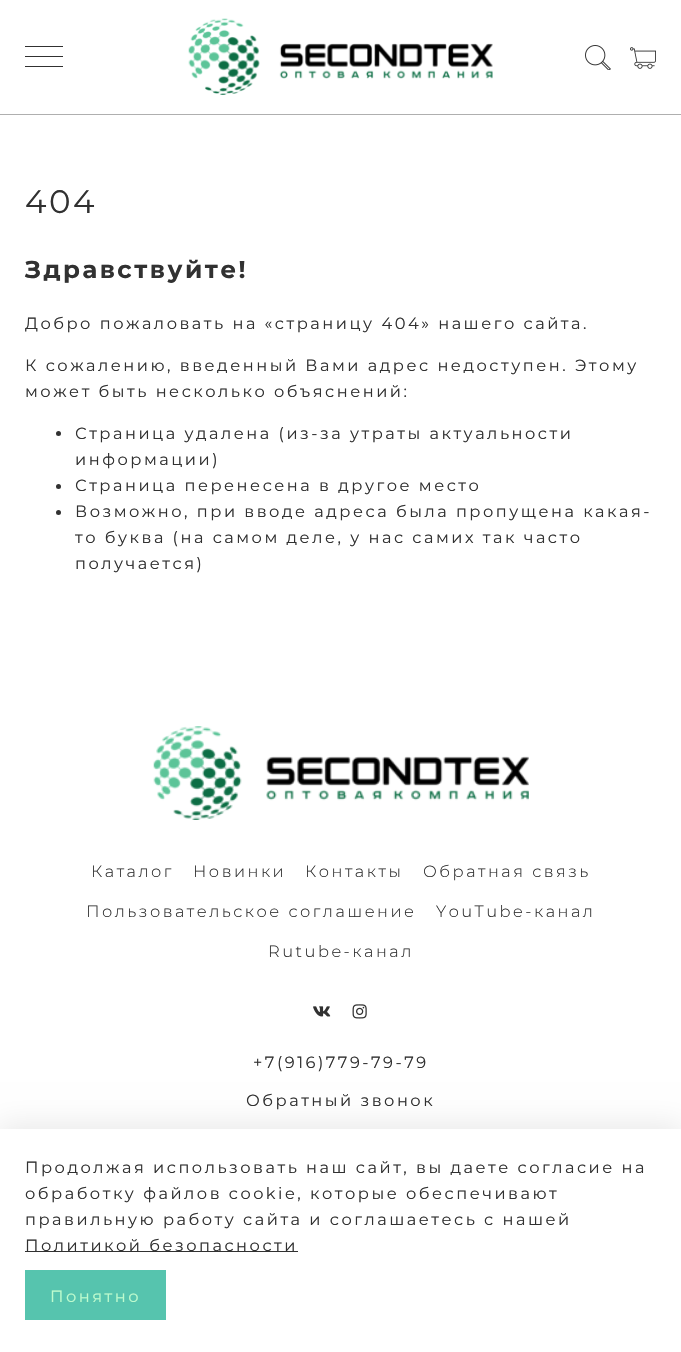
static SkFont makeFont(const char* family, int weight, float size, bool italic = false) {
  SkFontStyle style(weight, SkFontStyle::kNormal_Width,
    italic ? SkFontStyle::kItalic_Slant : SkFontStyle::kUpright_Slant);
  SkFont result(fontMgr->matchFamilyStyle(family, style), size);
  result.setSubpixel(true);
  return result;
}

static void spacedText(SkCanvas* c, const char* s, float x, float y, const SkFont& font, const SkPaint& ink, float letter, float word) {
  std::vector<SkGlyphID> glyphs(font.countText(s, strlen(s), SkTextEncoding::kUTF8));
  std::vector<float> xs(glyphs.size());
  font.textToGlyphs(s, strlen(s), SkTextEncoding::kUTF8, glyphs);
  font.getXPos(glyphs, xs, x);
  float extra = 0;
  for (size_t i = 0; i < glyphs.size(); i++) {
    xs[i] += extra;
    extra += letter + word * (glyphs[i] == font.unicharToGlyph(' '));
  }
  c->drawTextBlob(SkTextBlob::MakeFromPosHGlyphs(glyphs, xs, y, font), 0, 0, ink);
}

static void box(SkCanvas* c, float l, float t, float r, float b, SkColor color) {
  SkPaint ink(SkColor4f::FromColor(color));
  ink.setAntiAlias(true);
  c->drawRect(SkRect::MakeLTRB(l, t, r, b), ink);
}

static void picture(SkCanvas* c, const char* path, float l, float t, float r, float b) {
  auto image = SkImages::DeferredFromEncodedData(SkData::MakeFromFileName(path));
  c->drawImageRect(image, SkRect::MakeLTRB(l, t, r, b), SkSamplingOptions());
}

void draw(SkCanvas* c) {
  SkPaint paint;
  paint.setAntiAlias(true);
  c->clear(0xffffffff);
  box(c, 25, 46, 63, 47, 0xff313131);
  box(c, 25, 56, 63, 57, 0xff313131);
  box(c, 25, 66, 63, 67, 0xff313131);
  picture(c, "img_01.png", 188, 18, 493, 95);
  picture(c, "img_02.png", 585, 45, 611, 70);
  picture(c, "img_03.png", 630, 47, 656, 69);
  box(c, 0, 114, 681, 115, 0xffafafaf);
  SkFont face1 = makeFont("Montserrat", 400, 32.5f);
  paint.setColor(0xff313131);
  spacedText(c, "404", 25, 213, face1, paint, 2.5f, 0);
  SkFont face2 = makeFont("Montserrat", 700, 24.4f);
  spacedText(c, "Здравствуйте!", 25, 278, face2, paint, 2.5f, 0);
  SkFont face3 = makeFont("Montserrat", 400, 16.25f);
  spacedText(c, "Добро пожаловать на «страницу 404» нашего сайта.", 25, 329, face3, paint, 2.5f, 0);
  spacedText(c, "К сожалению, введенный Вами адрес недоступен. Этому", 25, 371, face3, paint, 2.5f, 0);
  spacedText(c, "может быть несколько объяснений:", 25, 397, face3, paint, 2.5f, 0);
  c->drawCircle(58.5f, 433.5f, 2.5f, paint);
  spacedText(c, "Страница удалена (из-за утраты актуальности", 75, 439, face3, paint, 2.5f, 0);
  spacedText(c, "информации)", 75, 465, face3, paint, 2.5f, 0);
  c->drawCircle(58.5f, 486.5f, 2.5f, paint);
  spacedText(c, "Страница перенесена в другое место", 75, 491, face3, paint, 2.5f, 0);
  c->drawCircle(58.5f, 512.5f, 2.5f, paint);
  spacedText(c, "Возможно, при вводе адреса была пропущена какая-", 75, 517, face3, paint, 2.5f, 0);
  spacedText(c, "то буква (на самом деле, у нас самих так часто", 75, 543, face3, paint, 2.5f, 0);
  spacedText(c, "получается)", 75, 569, face3, paint, 2.5f, 0);
  picture(c, "img_04.png", 153, 726, 529, 820);
  SkFont face4 = makeFont("Montserrat", 300, 16.25f);
  spacedText(c, "Каталог", 91, 877, face4, paint, 2.5f, 0);
  spacedText(c, "Новинки", 193, 877, face4, paint, 2.5f, 0);
  spacedText(c, "Контакты", 305, 877, face4, paint, 2.5f, 0);
  spacedText(c, "Обратная связь", 423, 877, face4, paint, 2.5f, 0);
  spacedText(c, "Пользовательское соглашение", 86, 917, face4, paint, 2.5f, 0);
  spacedText(c, "YouTube-канал", 436, 917, face4, paint, 2.5f, 0);
  spacedText(c, "Rutube-канал", 268, 957, face4, paint, 2.5f, 0);
  picture(c, "img_05.png", 313, 1006, 331, 1017);
  picture(c, "img_06.png", 352, 1004, 367, 1019);
  spacedText(c, "+7(916)779-79-79", 253, 1068, face3, paint, 2.5f, 0);
  spacedText(c, "Обратный звонок", 246, 1106, face3, paint, 2.5f, 0);
  paint.setColor(0x17000000);
  paint.setMaskFilter(SkMaskFilter::MakeBlur(kNormal_SkBlurStyle, 14.5f));
  c->drawRect(SkRect::MakeLTRB(-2, 1125, 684, 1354), paint);
  paint.setMaskFilter(nullptr);
  box(c, 0, 1129, 681, 1352, 0xffffffff);
  paint.setColor(0xff313131);
  spacedText(c, "Продолжая использовать наш сайт, вы даете согласие на", 25, 1173, face3, paint, 2.5f, 0);
  spacedText(c, "обработку файлов cookie, которые обеспечивают", 25, 1199, face3, paint, 2.5f, 0);
  spacedText(c, "правильную работу сайта и соглашаетесь с нашей", 25, 1225, face3, paint, 2.5f, 0);
  box(c, 25, 1251, 298, 1252, 0xff313131);
  spacedText(c, "Политикой безопасности", 25, 1251, face3, paint, 2.5f, 0);
  box(c, 25, 1270, 166, 1320, 0xff56c4ae);
  paint.setColor(0xffbefbce);
  spacedText(c, "Понятно", 50, 1302, face3, paint, 2.5f, 0);
}
